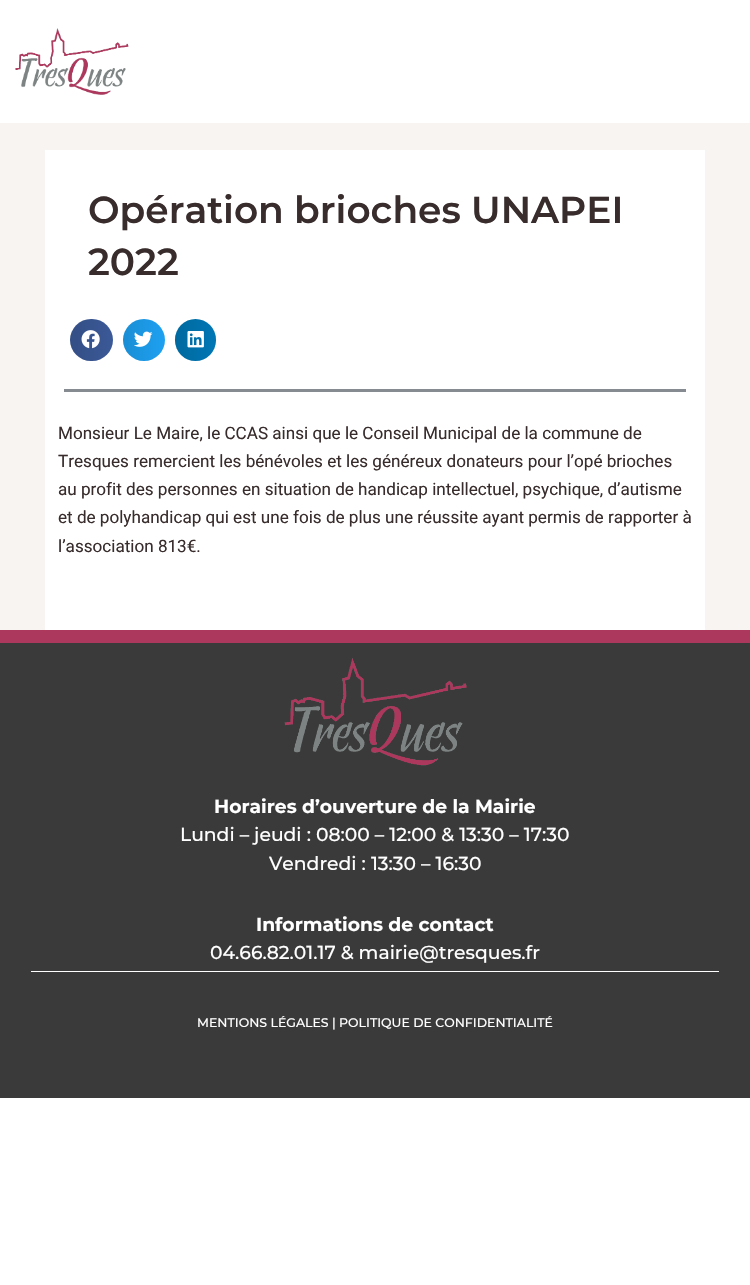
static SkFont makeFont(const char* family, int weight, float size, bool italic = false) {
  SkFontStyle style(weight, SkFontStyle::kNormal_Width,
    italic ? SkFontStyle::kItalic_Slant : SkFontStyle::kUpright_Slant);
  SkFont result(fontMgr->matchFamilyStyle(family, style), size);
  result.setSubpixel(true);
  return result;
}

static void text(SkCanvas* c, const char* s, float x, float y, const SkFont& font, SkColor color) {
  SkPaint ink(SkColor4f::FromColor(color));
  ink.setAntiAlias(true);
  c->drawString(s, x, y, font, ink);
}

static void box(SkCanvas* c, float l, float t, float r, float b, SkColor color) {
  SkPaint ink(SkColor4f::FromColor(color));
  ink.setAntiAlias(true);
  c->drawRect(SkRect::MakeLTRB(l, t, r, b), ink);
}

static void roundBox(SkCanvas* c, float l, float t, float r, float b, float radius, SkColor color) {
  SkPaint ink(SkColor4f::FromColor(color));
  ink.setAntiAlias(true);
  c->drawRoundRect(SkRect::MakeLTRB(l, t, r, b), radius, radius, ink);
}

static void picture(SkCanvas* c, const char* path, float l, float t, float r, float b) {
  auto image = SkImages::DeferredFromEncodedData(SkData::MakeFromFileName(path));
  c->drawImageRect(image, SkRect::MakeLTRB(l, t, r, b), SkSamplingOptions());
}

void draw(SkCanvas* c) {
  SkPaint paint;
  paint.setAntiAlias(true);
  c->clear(0xffffffff);
  box(c, 0, 123, 750, 630, 0xfff7f4f1);
  picture(c, "img_01.png", 15, 28, 129, 95);
  box(c, 45, 150, 705, 630, 0xffffffff);
  SkFont face1 = makeFont("Montserrat", 600, 37.5f);
  text(c, "Opération brioches UNAPEI", 88, 223, face1, 0xff382c2c);
  text(c, "2022", 88, 275, face1, 0xff382c2c);
  roundBox(c, 70, 319, 113, 361, 21, 0xff3b5998);
  {
    const SkColor colors[] = {0x1f000000, 0x00000000};
    const float stops[] = {0, 1};
    const SkPoint ends[] = {{70, 340}, {113, 340}};
    paint.setShader(SkGradientShader::MakeLinear(ends, colors, stops, 2, SkTileMode::kClamp));
    paint.setAlpha(255);
  }
  c->drawRoundRect(SkRect::MakeLTRB(70, 319, 113, 361), 21, 21, paint);
  picture(c, "img_02.png", 81, 330, 100, 349);
  paint.setShader(nullptr);
  paint.setColor(0xff1da1f2);
  c->drawCircle(144, 340, 21, paint);
  {
    const SkColor colors[] = {0x1f000000, 0x00000000};
    const float stops[] = {0, 1};
    const SkPoint ends[] = {{123, 340}, {165, 340}};
    paint.setShader(SkGradientShader::MakeLinear(ends, colors, stops, 2, SkTileMode::kClamp));
    paint.setAlpha(255);
  }
  c->drawCircle(144, 340, 21, paint);
  picture(c, "img_03.png", 134, 331, 153, 347);
  roundBox(c, 175, 319, 216, 361, 20.5f, 0xff0077b5);
  {
    const SkColor colors[] = {0x1f000000, 0x00000000};
    const float stops[] = {0, 1};
    const SkPoint ends[] = {{175, 340}, {216, 340}};
    paint.setShader(SkGradientShader::MakeLinear(ends, colors, stops, 2, SkTileMode::kClamp));
    paint.setAlpha(255);
  }
  c->drawRoundRect(SkRect::MakeLTRB(175, 319, 216, 361), 20.5f, 20.5f, paint);
  picture(c, "img_04.png", 187, 331, 204, 348);
  box(c, 64, 389, 686, 392, 0xff858b90);
  SkFont face2 = makeFont("Roboto", 400, 17.1f);
  text(c, "Monsieur Le Maire, le CCAS ainsi que le Conseil Municipal de la commune de", 58, 439, face2, 0xff382c2c);
  text(c, "Tresques remercient les bénévoles et les généreux donateurs pour l’opé brioches", 58, 467, face2, 0xff382c2c);
  text(c, "au profit des personnes en situation de handicap intellectuel, psychique, d’autisme", 58, 495, face2, 0xff382c2c);
  text(c, "et de polyhandicap qui est une fois de plus une réussite ayant permis de rapporter à", 58, 523, face2, 0xff382c2c);
  text(c, "l’association 813€.", 58, 552, face2, 0xff382c2c);
  box(c, 0, 643, 750, 1098, 0xff3a3a3a);
  box(c, 0, 630, 750, 643, 0xffad385d);
  picture(c, "img_05.png", 284, 658, 467, 766);
  SkFont face3 = makeFont("Montserrat", 700, 18.75f);
  text(c, "Horaires d’ouverture de la Mairie", 214, 813, face3, 0xffffffff);
  SkFont face4 = makeFont("Montserrat", 500, 18.75f);
  text(c, "Lundi – jeudi : 08:00 – 12:00 & 13:30 – 17:30", 180, 841, face4, 0xffffffff);
  text(c, "Vendredi : 13:30 – 16:30", 269, 870, face4, 0xffffffff);
  text(c, "Informations de contact", 256, 931, face3, 0xffffffff);
  text(c, "04.66.82.01.17 & mairie@tresques.fr", 210, 959, face4, 0xffffffff);
  box(c, 31, 971, 719, 972, 0xffffffff);
  SkFont face5 = makeFont("Montserrat", 500, 12.5f);
  text(c, "MENTIONS LÉGALES | POLITIQUE DE CONFIDENTIALITÉ", 197, 1027, face5, 0xffffffff);
}
